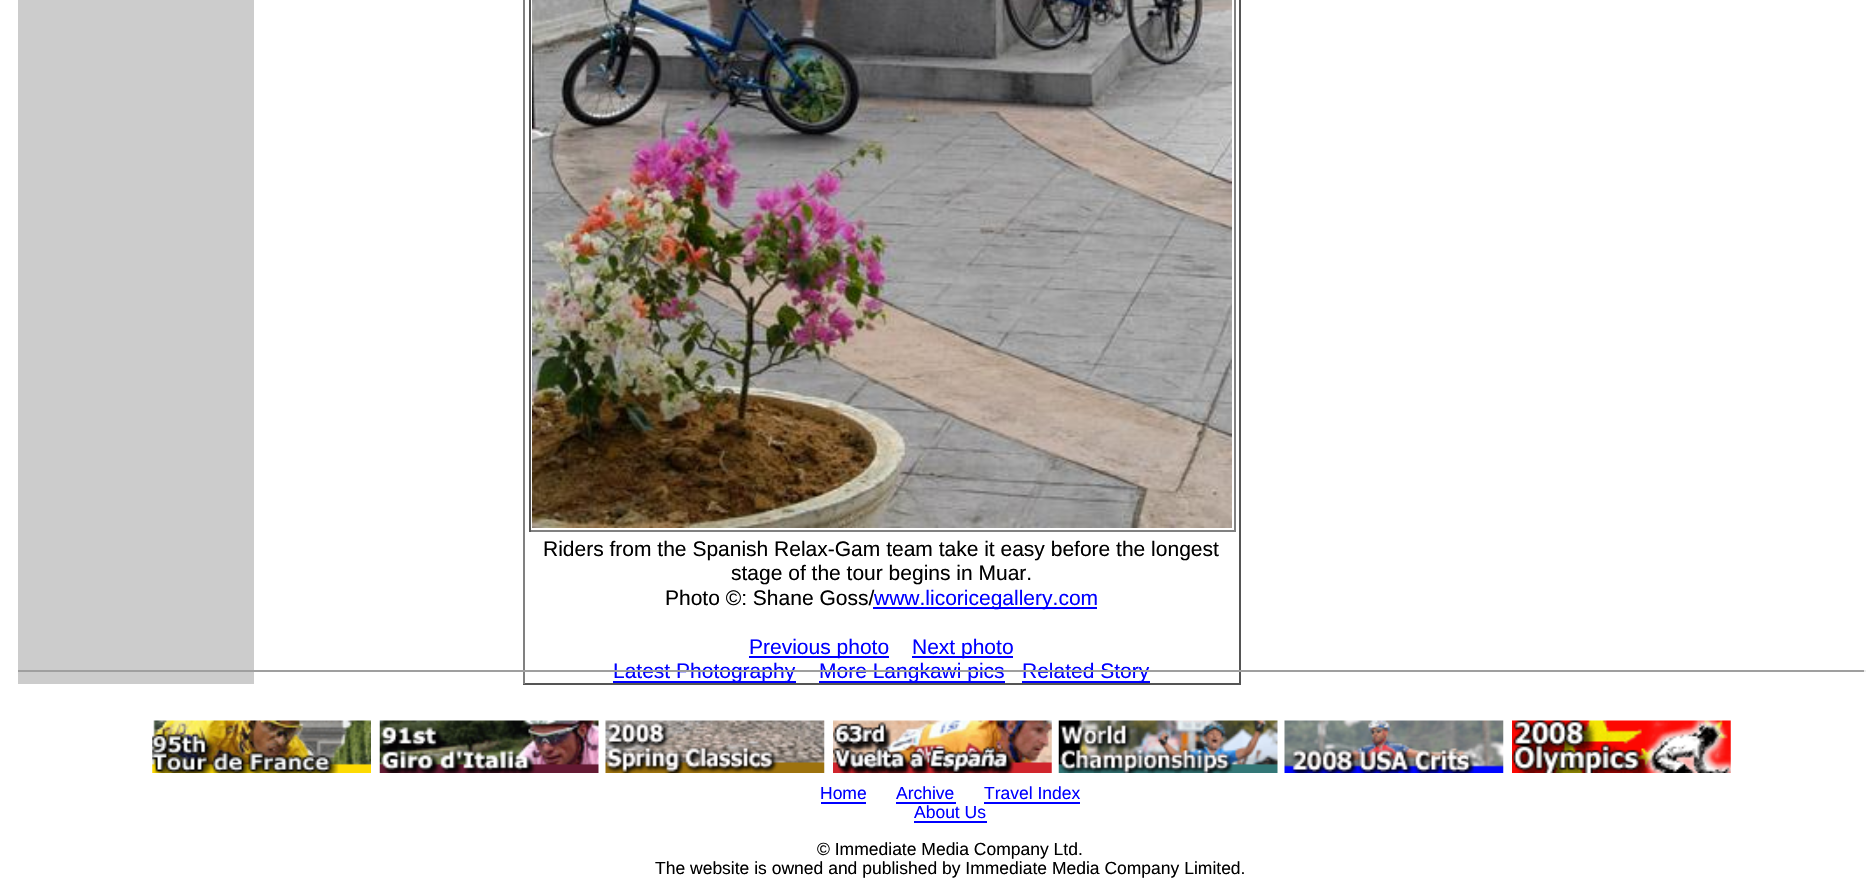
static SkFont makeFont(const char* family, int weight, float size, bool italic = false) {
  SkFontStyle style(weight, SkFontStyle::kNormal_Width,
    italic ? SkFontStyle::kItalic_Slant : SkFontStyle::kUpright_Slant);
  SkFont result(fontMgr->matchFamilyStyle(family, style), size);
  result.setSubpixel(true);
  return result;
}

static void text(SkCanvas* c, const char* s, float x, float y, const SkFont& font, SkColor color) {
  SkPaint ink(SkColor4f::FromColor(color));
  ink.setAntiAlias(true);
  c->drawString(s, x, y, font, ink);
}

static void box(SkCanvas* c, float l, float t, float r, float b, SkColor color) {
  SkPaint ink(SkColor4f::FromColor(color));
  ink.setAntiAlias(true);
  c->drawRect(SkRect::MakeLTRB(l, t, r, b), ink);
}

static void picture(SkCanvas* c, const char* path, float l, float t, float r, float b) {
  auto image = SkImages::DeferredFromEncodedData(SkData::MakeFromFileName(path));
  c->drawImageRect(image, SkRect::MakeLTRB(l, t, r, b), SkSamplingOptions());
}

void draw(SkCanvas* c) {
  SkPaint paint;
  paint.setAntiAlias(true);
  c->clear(0xffffffff);
  box(c, 18, 0, 254, 684, 0xffcccccc);
  box(c, 1239, 0, 1241, 684, 0xff555555);
  box(c, 523, 683, 1241, 685, 0xff555555);
  box(c, 523, 0, 525, 684, 0xff808080);
  box(c, 1234, 0, 1236, 532, 0xff808080);
  box(c, 529, 530, 1236, 532, 0xff808080);
  box(c, 529, 0, 531, 532, 0xff555555);
  picture(c, "img_01.png", 532, 0, 1232, 528);
  SkFont face1 = makeFont("Liberation Sans", 400, 21);
  text(c, "Riders from the Spanish Relax-Gam team take it easy before the longest", 543, 556, face1, 0xff000000);
  text(c, "stage of the tour begins in Muar.", 731, 580, face1, 0xff000000);
  text(c, "Photo ©: Shane Goss/", 665, 605, face1, 0xff000000);
  box(c, 873, 607, 1097, 609, 0xff0000ff);
  text(c, "www.licoricegallery.com", 874, 605, face1, 0xff0000ff);
  box(c, 749, 656, 889, 658, 0xff0000ff);
  text(c, "Previous photo", 749, 654, face1, 0xff0000ff);
  box(c, 912, 656, 1013, 658, 0xff0000ff);
  text(c, "Next photo", 912, 654, face1, 0xff0000ff);
  box(c, 613, 681, 796, 683, 0xff0000ff);
  text(c, "Latest Photography", 613, 678, face1, 0xff0000ff);
  box(c, 819, 681, 1005, 683, 0xff0000ff);
  text(c, "More Langkawi pics", 819, 678, face1, 0xff0000ff);
  box(c, 1022, 681, 1150, 683, 0xff0000ff);
  text(c, "Related Story", 1022, 678, face1, 0xff0000ff);
  box(c, 18, 670, 1866, 672, 0xff9f9f9f);
  box(c, 1864, 670, 1866, 672, 0xffeeeeee);
  picture(c, "img_02.png", 152, 720, 371, 773);
  picture(c, "img_03.png", 379, 720, 599, 773);
  picture(c, "img_04.png", 605, 720, 825, 773);
  picture(c, "img_05.png", 833, 720, 1052, 773);
  picture(c, "img_06.png", 1058, 720, 1278, 773);
  picture(c, "img_07.png", 1284, 720, 1504, 773);
  picture(c, "img_08.png", 1512, 720, 1731, 773);
  SkFont face2 = makeFont("Liberation Sans", 400, 17.5f);
  text(c, "Home", 820, 799, face2, 0xff0000ff);
  box(c, 821, 802, 866, 804, 0xff0000ff);
  text(c, "Archive", 896, 799, face2, 0xff0000ff);
  box(c, 896, 802, 956, 804, 0xff0000ff);
  text(c, "Travel Index", 984, 799, face2, 0xff0000ff);
  box(c, 984, 802, 1080, 804, 0xff0000ff);
  text(c, "About Us", 914, 818, face2, 0xff0000ff);
  box(c, 914, 821, 987, 823, 0xff0000ff);
  text(c, "© Immediate Media Company Ltd.", 817, 855, face2, 0xff000000);
  text(c, "The website is owned and published by Immediate Media Company Limited.", 655, 874, face2, 0xff000000);
}
